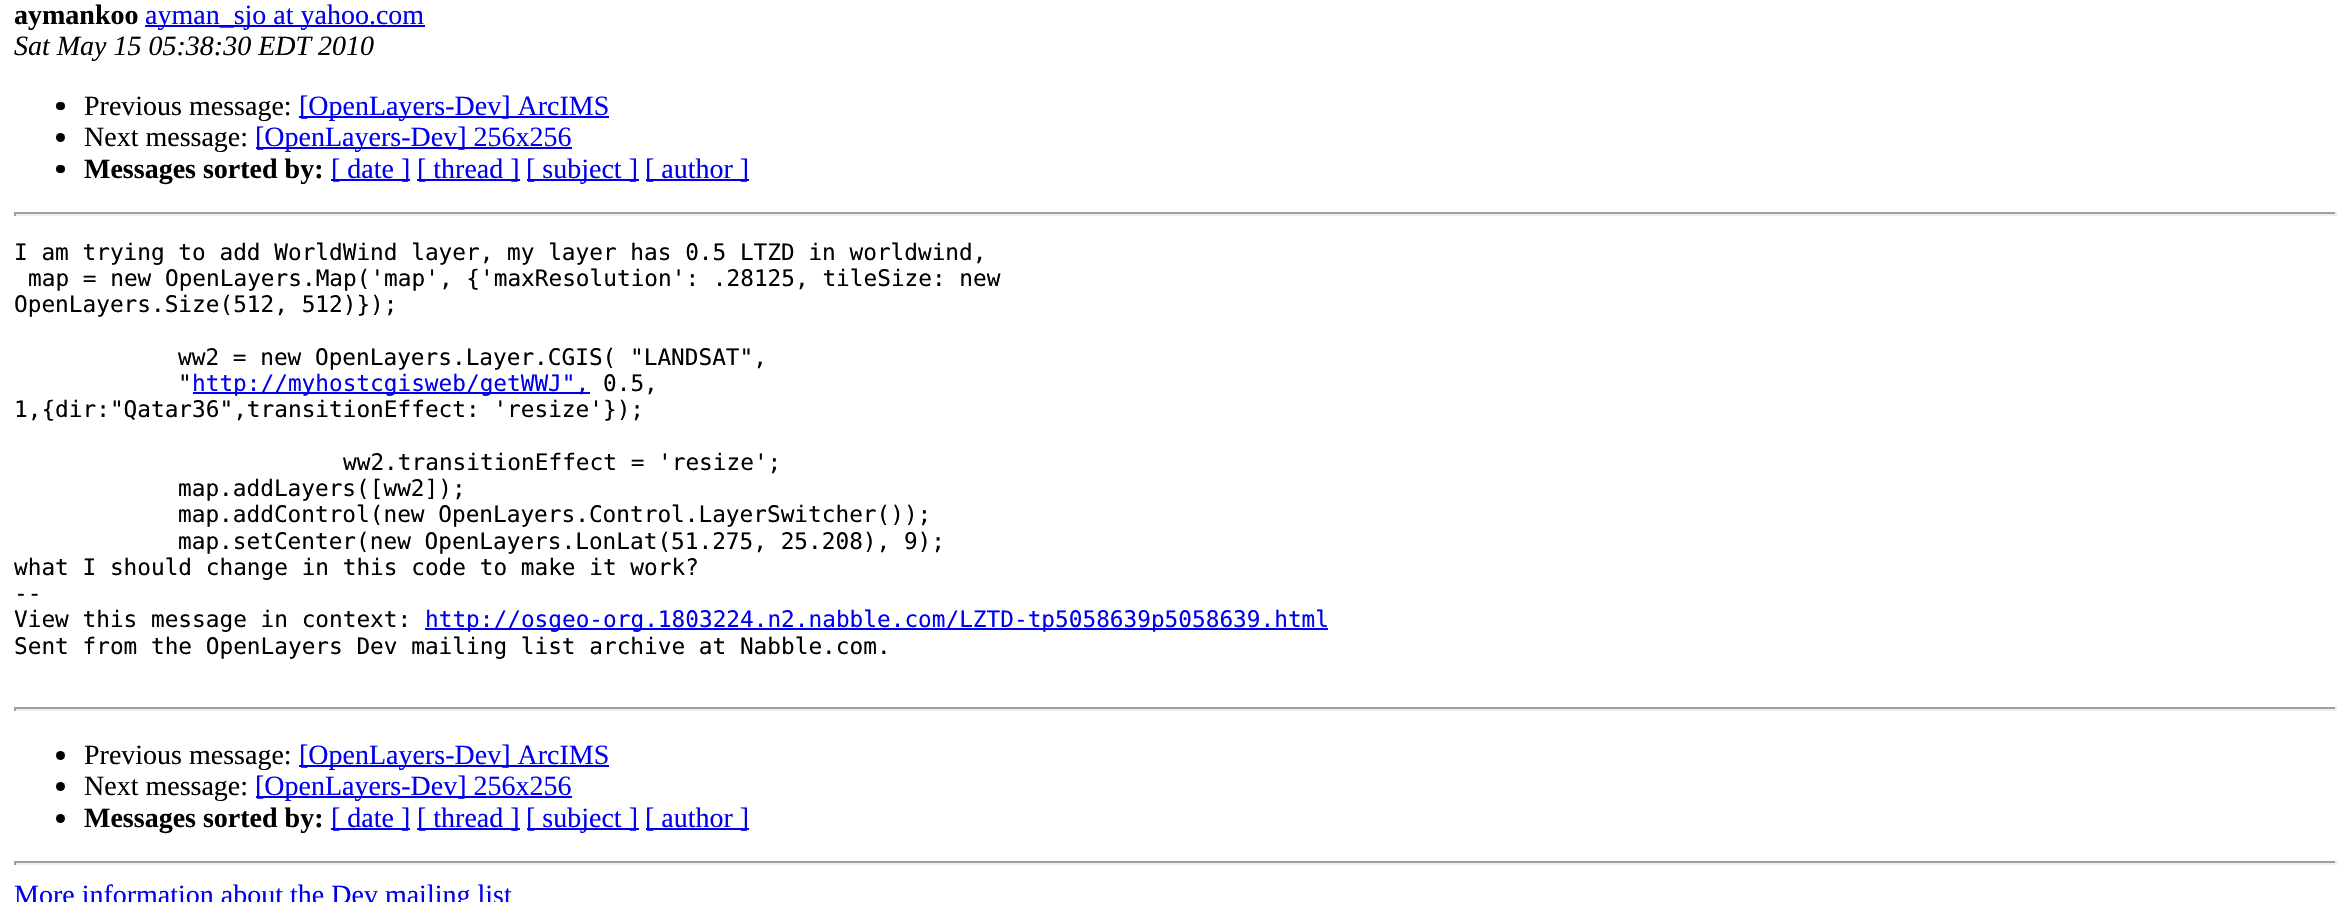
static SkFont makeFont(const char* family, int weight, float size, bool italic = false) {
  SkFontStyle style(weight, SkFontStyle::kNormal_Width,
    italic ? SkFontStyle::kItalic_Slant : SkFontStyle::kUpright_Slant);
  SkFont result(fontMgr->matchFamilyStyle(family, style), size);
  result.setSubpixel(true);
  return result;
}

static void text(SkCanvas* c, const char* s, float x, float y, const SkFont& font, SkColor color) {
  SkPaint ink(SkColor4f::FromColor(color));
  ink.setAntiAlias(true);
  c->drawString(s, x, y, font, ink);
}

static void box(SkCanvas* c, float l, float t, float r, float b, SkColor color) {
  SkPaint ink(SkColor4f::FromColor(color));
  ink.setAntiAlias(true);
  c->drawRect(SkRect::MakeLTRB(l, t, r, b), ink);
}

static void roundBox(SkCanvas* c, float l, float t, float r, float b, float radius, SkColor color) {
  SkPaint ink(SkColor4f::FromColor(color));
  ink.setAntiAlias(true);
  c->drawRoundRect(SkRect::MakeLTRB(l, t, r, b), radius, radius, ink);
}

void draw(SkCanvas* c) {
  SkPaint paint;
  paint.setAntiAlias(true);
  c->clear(0xffffffff);
  SkFont face1 = makeFont("Liberation Serif", 700, 28);
  text(c, "aymankoo", 14, 24, face1, 0xff000000);
  box(c, 145, 25, 425, 27, 0xff0000ee);
  SkFont face2 = makeFont("Liberation Serif", 400, 28);
  text(c, "ayman_sjo at yahoo.com", 145, 24, face2, 0xff0000ee);
  SkFont face3 = makeFont("Liberation Serif", 400, 28, true);
  text(c, "Sat May 15 05:38:30 EDT 2010", 14, 55, face3, 0xff000000);
  roundBox(c, 56, 102, 65, 110, 4, 0xff000000);
  text(c, "Previous message:", 84, 115, face2, 0xff000000);
  box(c, 299, 116, 609, 118, 0xff0000ee);
  text(c, "[OpenLayers-Dev] ArcIMS", 299, 115, face2, 0xff0000ee);
  paint.setColor(0xff000000);
  c->drawCircle(60.5f, 137.5f, 4.5f, paint);
  text(c, "Next message:", 84, 146, face2, 0xff000000);
  box(c, 256, 147, 572, 149, 0xff0000ee);
  text(c, "[OpenLayers-Dev] 256x256", 255, 146, face2, 0xff0000ee);
  roundBox(c, 56, 165, 65, 173, 4, 0xff000000);
  text(c, "Messages sorted by:", 84, 178, face1, 0xff000000);
  box(c, 331, 179, 410, 181, 0xff0000ee);
  text(c, "[ date ]", 331, 178, face2, 0xff0000ee);
  box(c, 417, 179, 520, 181, 0xff0000ee);
  text(c, "[ thread ]", 417, 178, face2, 0xff0000ee);
  box(c, 527, 179, 639, 181, 0xff0000ee);
  text(c, "[ subject ]", 526, 178, face2, 0xff0000ee);
  box(c, 646, 179, 749, 181, 0xff0000ee);
  text(c, "[ author ]", 645, 178, face2, 0xff0000ee);
  box(c, 14, 212, 2336, 214, 0xff9f9f9f);
  box(c, 2335, 212, 2337, 216, 0xffeeeeee);
  box(c, 14, 214, 2336, 216, 0xffeeeeee);
  box(c, 14, 212, 16, 216, 0xff9f9f9f);
  SkFont face4 = makeFont("DejaVu Sans Mono", 400, 22.75f);
  text(c, "I am trying to add WorldWind layer, my layer has 0.5 LTZD in worldwind,", 14, 260, face4, 0xff000000);
  text(c, "map = new OpenLayers.Map('map', {'maxResolution': .28125, tileSize: new", 28, 286, face4, 0xff000000);
  text(c, "OpenLayers.Size(512, 512)});", 14, 312, face4, 0xff000000);
  text(c, "ww2 = new OpenLayers.Layer.CGIS( \"LANDSAT\",", 178, 365, face4, 0xff000000);
  text(c, "\"", 178, 391, face4, 0xff000000);
  box(c, 193, 392, 590, 394, 0xff0000ee);
  text(c, "http://myhostcgisweb/getWWJ\",", 192, 391, face4, 0xff0000ee);
  text(c, "0.5,", 603, 391, face4, 0xff000000);
  text(c, "1,{dir:\"Qatar36\",transitionEffect: 'resize'});", 14, 417, face4, 0xff000000);
  text(c, "ww2.transitionEffect = 'resize';", 343, 470, face4, 0xff000000);
  text(c, "map.addLayers([ww2]);", 178, 496, face4, 0xff000000);
  text(c, "map.addControl(new OpenLayers.Control.LayerSwitcher());", 178, 522, face4, 0xff000000);
  text(c, "map.setCenter(new OpenLayers.LonLat(51.275, 25.208), 9);", 178, 549, face4, 0xff000000);
  text(c, "what I should change in this code to make it work?", 14, 575, face4, 0xff000000);
  text(c, "--", 14, 601, face4, 0xff000000);
  text(c, "View this message in context:", 14, 627, face4, 0xff000000);
  box(c, 425, 628, 1328, 630, 0xff0000ee);
  text(c, "http://osgeo-org.1803224.n2.nabble.com/LZTD-tp5058639p5058639.html", 425, 627, face4, 0xff0000ee);
  text(c, "Sent from the OpenLayers Dev mailing list archive at Nabble.com.", 14, 654, face4, 0xff000000);
  box(c, 14, 707, 2336, 709, 0xff9f9f9f);
  box(c, 2335, 707, 2337, 711, 0xffeeeeee);
  box(c, 14, 709, 2336, 711, 0xffeeeeee);
  box(c, 14, 707, 16, 711, 0xff9f9f9f);
  c->drawCircle(60.5f, 755.5f, 4.5f, paint);
  text(c, "Previous message:", 84, 764, face2, 0xff000000);
  box(c, 299, 765, 609, 767, 0xff0000ee);
  text(c, "[OpenLayers-Dev] ArcIMS", 299, 764, face2, 0xff0000ee);
  c->drawCircle(60.5f, 786.5f, 4.5f, paint);
  text(c, "Next message:", 84, 795, face2, 0xff000000);
  box(c, 256, 796, 572, 798, 0xff0000ee);
  text(c, "[OpenLayers-Dev] 256x256", 255, 795, face2, 0xff0000ee);
  c->drawCircle(60.5f, 818.5f, 4.5f, paint);
  text(c, "Messages sorted by:", 84, 827, face1, 0xff000000);
  box(c, 331, 828, 410, 830, 0xff0000ee);
  text(c, "[ date ]", 331, 827, face2, 0xff0000ee);
  box(c, 417, 828, 520, 830, 0xff0000ee);
  text(c, "[ thread ]", 417, 827, face2, 0xff0000ee);
  box(c, 527, 828, 639, 830, 0xff0000ee);
  text(c, "[ subject ]", 526, 827, face2, 0xff0000ee);
  box(c, 646, 828, 749, 830, 0xff0000ee);
  text(c, "[ author ]", 645, 827, face2, 0xff0000ee);
  box(c, 14, 861, 2336, 863, 0xff9f9f9f);
  box(c, 2335, 861, 2337, 865, 0xffeeeeee);
  box(c, 14, 863, 2336, 865, 0xffeeeeee);
  box(c, 14, 861, 16, 865, 0xff9f9f9f);
  text(c, "More information about the Dev mailing list", 14, 904, face2, 0xff0000ee);
}
